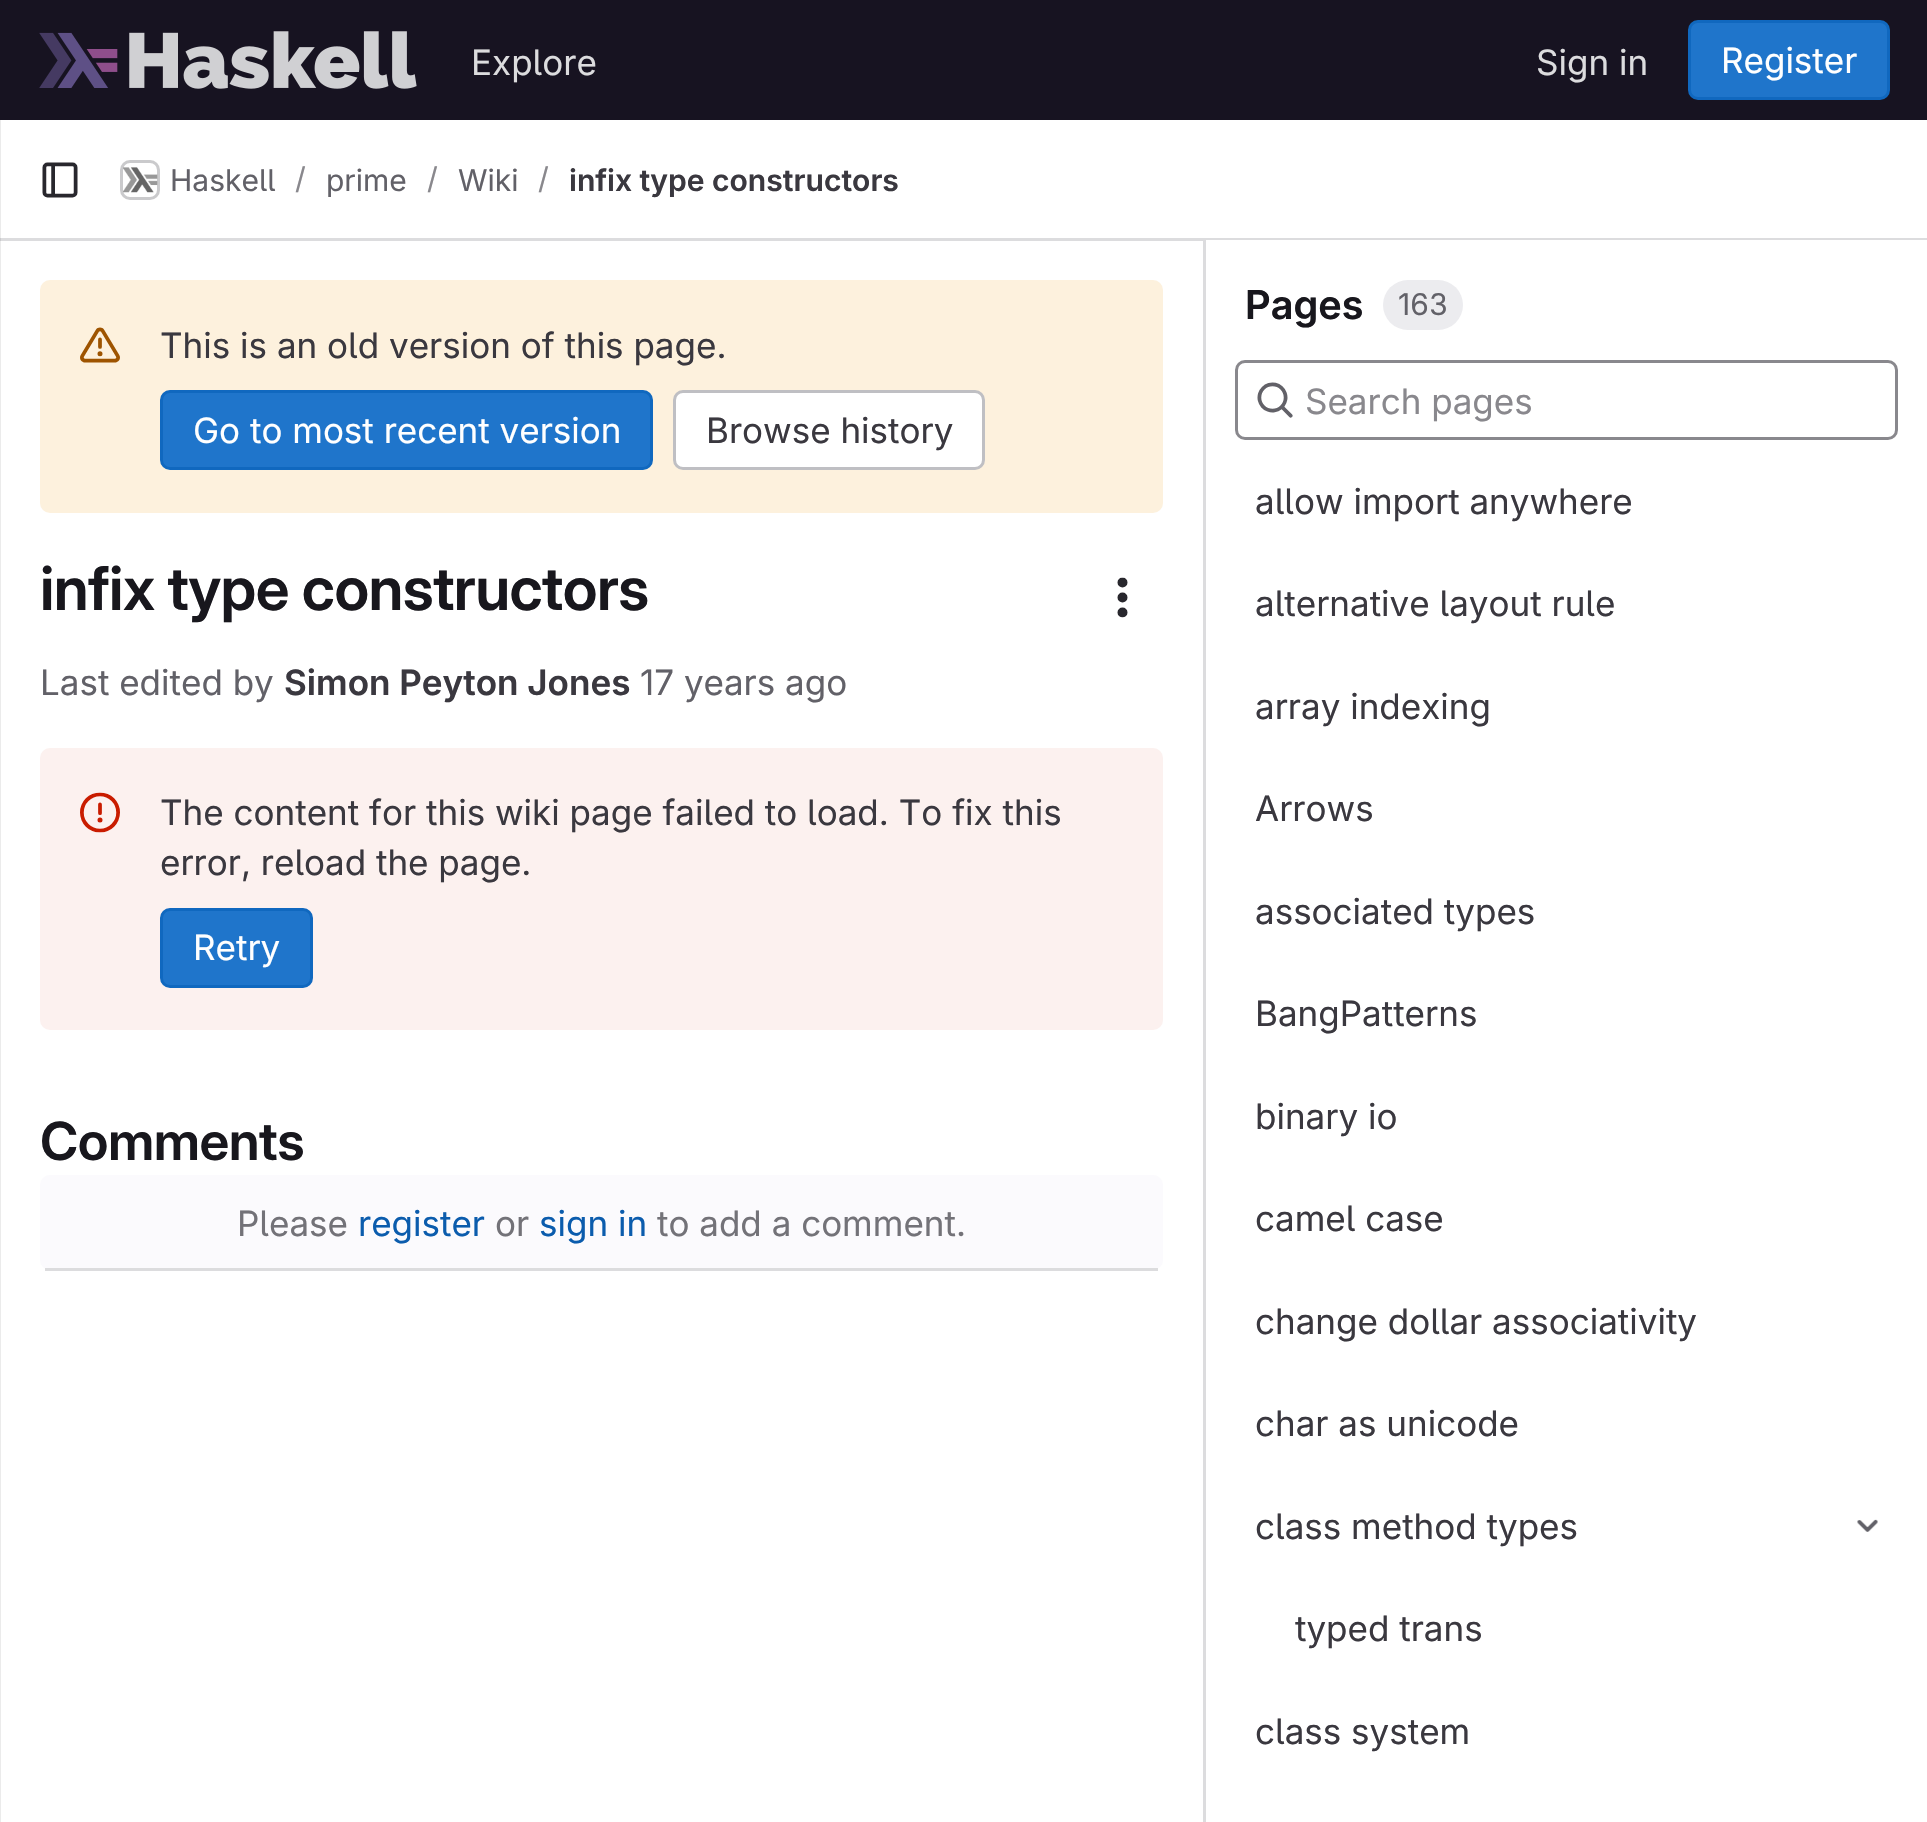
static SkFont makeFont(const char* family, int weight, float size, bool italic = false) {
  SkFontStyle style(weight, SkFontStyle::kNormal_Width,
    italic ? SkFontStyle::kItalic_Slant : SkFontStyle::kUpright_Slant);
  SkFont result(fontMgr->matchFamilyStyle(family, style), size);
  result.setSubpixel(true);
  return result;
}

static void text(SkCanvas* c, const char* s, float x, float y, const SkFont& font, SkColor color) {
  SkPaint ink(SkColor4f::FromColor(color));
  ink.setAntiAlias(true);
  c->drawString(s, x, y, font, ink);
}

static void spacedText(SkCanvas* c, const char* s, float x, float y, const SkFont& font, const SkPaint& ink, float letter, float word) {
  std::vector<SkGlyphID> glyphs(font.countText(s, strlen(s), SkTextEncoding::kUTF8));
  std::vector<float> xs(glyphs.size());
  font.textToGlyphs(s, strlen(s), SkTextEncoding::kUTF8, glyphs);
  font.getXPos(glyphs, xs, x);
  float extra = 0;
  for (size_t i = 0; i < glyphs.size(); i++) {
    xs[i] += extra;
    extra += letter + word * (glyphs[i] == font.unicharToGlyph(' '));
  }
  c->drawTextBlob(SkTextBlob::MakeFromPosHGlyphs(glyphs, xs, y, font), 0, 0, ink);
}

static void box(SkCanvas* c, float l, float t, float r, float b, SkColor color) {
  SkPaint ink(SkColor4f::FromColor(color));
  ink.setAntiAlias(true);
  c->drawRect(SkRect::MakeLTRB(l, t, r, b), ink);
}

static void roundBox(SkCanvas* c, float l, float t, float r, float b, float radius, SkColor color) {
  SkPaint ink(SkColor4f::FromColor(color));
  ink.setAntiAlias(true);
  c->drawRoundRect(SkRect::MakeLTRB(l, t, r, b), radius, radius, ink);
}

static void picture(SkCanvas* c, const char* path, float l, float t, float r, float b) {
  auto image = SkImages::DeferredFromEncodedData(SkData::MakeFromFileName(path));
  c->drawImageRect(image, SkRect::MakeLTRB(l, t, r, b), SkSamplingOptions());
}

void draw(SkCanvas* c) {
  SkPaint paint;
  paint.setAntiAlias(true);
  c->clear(0xffffffff);
  box(c, 0, 120, 1, 1822, 0xffebebeb);
  box(c, 0, 0, 1927, 120, 0xff171321);
  picture(c, "img_01.png", 39, 31, 417, 89);
  SkFont face1 = makeFont("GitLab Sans", 400, 35);
  text(c, "Explore", 471, 75, face1, 0xffdcdcde);
  text(c, "Sign in", 1536, 75, face1, 0xffdcdcde);
  paint.setColor(0xff1f75cb);
  c->drawRoundRect(SkRect::MakeLTRB(1689.5f, 21.5f, 1888.5f, 98.5f), 8.5f, 8.5f, paint);
  paint.setStyle(SkPaint::kStroke_Style);
  paint.setStrokeWidth(3);
  paint.setColor(0xff1068bf);
  c->drawRoundRect(SkRect::MakeLTRB(1689.5f, 21.5f, 1888.5f, 98.5f), 8.5f, 8.5f, paint);
  text(c, "Register", 1721, 73, face1, 0xffffffff);
  box(c, 0, 238, 1927, 241, 0xffdcdcde);
  box(c, 0, 238, 1, 241, 0xffcbcbcd);
  picture(c, "img_02.png", 42, 162, 78, 198);
  paint.setColor(0xffdcdcde);
  c->drawRoundRect(SkRect::MakeLTRB(121.5f, 161.5f, 158.5f, 198.5f), 8.5f, 8.5f, paint);
  picture(c, "img_03.png", 123, 167, 158, 193);
  paint.setColor(0x14050506);
  c->drawRoundRect(SkRect::MakeLTRB(121.5f, 161.5f, 158.5f, 198.5f), 8.5f, 8.5f, paint);
  SkFont face2 = makeFont("GitLab Sans", 400, 30);
  text(c, "Haskell", 170, 191, face2, 0xff626168);
  text(c, "/", 295, 189, face2, 0xff89888d);
  text(c, "prime", 326, 191, face2, 0xff626168);
  text(c, "/", 427, 189, face2, 0xff89888d);
  text(c, "Wiki", 458, 191, face2, 0xff626168);
  text(c, "/", 538, 189, face2, 0xff89888d);
  SkFont face3 = makeFont("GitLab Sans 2", 600, 30);
  text(c, "infix type constructors", 569, 191, face3, 0xff3a383f);
  roundBox(c, 40, 280, 1163, 513, 10, 0xfffdf1dd);
  picture(c, "img_04.png", 80, 327, 120, 363);
  text(c, "This is an old version of this page.", 160, 358, face1, 0xff3a383f);
  paint.setStyle(SkPaint::kFill_Style);
  paint.setColor(0xff1f75cb);
  c->drawRoundRect(SkRect::MakeLTRB(161.5f, 391.5f, 651.5f, 468.5f), 8.5f, 8.5f, paint);
  paint.setStyle(SkPaint::kStroke_Style);
  paint.setColor(0xff1068bf);
  c->drawRoundRect(SkRect::MakeLTRB(161.5f, 391.5f, 651.5f, 468.5f), 8.5f, 8.5f, paint);
  text(c, "Go to most recent version", 193, 443, face1, 0xffffffff);
  paint.setStyle(SkPaint::kFill_Style);
  paint.setColor(0xffffffff);
  c->drawRoundRect(SkRect::MakeLTRB(674.5f, 391.5f, 983.5f, 468.5f), 8.5f, 8.5f, paint);
  paint.setStyle(SkPaint::kStroke_Style);
  paint.setColor(0xffbfbfc3);
  c->drawRoundRect(SkRect::MakeLTRB(674.5f, 391.5f, 983.5f, 468.5f), 8.5f, 8.5f, paint);
  text(c, "Browse history", 706, 443, face1, 0xff3a383f);
  SkFont face4 = makeFont("GitLab Sans", 600, 60.1f);
  paint.setStyle(SkPaint::kFill_Style);
  paint.setColor(0xff18171d);
  spacedText(c, "infix type constructors", 40, 610, face4, paint, -0.6f, 0);
  picture(c, "img_05.png", 1117, 577, 1128, 618);
  text(c, "Last edited by", 40, 695, face1, 0xff626168);
  SkFont face5 = makeFont("GitLab Sans 2", 600, 35);
  text(c, "Simon Peyton Jones", 284, 695, face5, 0xff3a383f);
  text(c, "17 years ago", 640, 695, face1, 0xff626168);
  roundBox(c, 40, 748, 1163, 1030, 10, 0xfffcf1ef);
  picture(c, "img_06.png", 80, 792, 120, 833);
  text(c, "The content for this wiki page failed to load. To fix this", 160, 825, face1, 0xff3a383f);
  text(c, "error, reload the page.", 160, 875, face1, 0xff3a383f);
  paint.setColor(0xff1f75cb);
  c->drawRoundRect(SkRect::MakeLTRB(161.5f, 909.5f, 311.5f, 986.5f), 8.5f, 8.5f, paint);
  paint.setStyle(SkPaint::kStroke_Style);
  paint.setColor(0xff1068bf);
  c->drawRoundRect(SkRect::MakeLTRB(161.5f, 909.5f, 311.5f, 986.5f), 8.5f, 8.5f, paint);
  text(c, "Retry", 193, 960, face1, 0xffffffff);
  box(c, 1206, 240, 1927, 241, 0xffffffff);
  box(c, 1203, 240, 1206, 1822, 0xffdcdcde);
  SkFont face6 = makeFont("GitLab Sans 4", 600, 40);
  text(c, "Pages", 1245, 319, face6, 0xff18171d);
  roundBox(c, 1383, 280, 1463, 330, 25, 0xffececef);
  text(c, "163", 1398, 315, face2, 0xff626168);
  paint.setColor(0xff89888d);
  c->drawRoundRect(SkRect::MakeLTRB(1236.5f, 361.5f, 1896.5f, 438.5f), 8.5f, 8.5f, paint);
  picture(c, "img_07.png", 1257, 382, 1293, 418);
  text(c, "Search pages", 1305, 414, face1, 0xff89888d);
  text(c, "allow import anywhere", 1255, 514, face1, 0xff3a383f);
  text(c, "alternative layout rule", 1255, 616, face1, 0xff3a383f);
  text(c, "array indexing", 1255, 719, face1, 0xff3a383f);
  text(c, "Arrows", 1255, 821, face1, 0xff3a383f);
  text(c, "associated types", 1255, 924, face1, 0xff3a383f);
  text(c, "BangPatterns", 1255, 1026, face1, 0xff3a383f);
  text(c, "binary io", 1255, 1129, face1, 0xff3a383f);
  text(c, "camel case", 1255, 1231, face1, 0xff3a383f);
  text(c, "change dollar associativity", 1255, 1334, face1, 0xff3a383f);
  text(c, "char as unicode", 1255, 1436, face1, 0xff3a383f);
  text(c, "class method types", 1255, 1539, face1, 0xff3a383f);
  picture(c, "img_08.png", 1857, 1519, 1878, 1532);
  text(c, "typed trans", 1295, 1641, face1, 0xff3a383f);
  text(c, "class system", 1255, 1744, face1, 0xff3a383f);
  SkFont face7 = makeFont("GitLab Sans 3", 600, 52.5f);
  paint.setStyle(SkPaint::kFill_Style);
  paint.setColor(0xff18171d);
  spacedText(c, "Comments", 40, 1160, face7, paint, -0.5f, 0);
  roundBox(c, 40, 1175, 1163, 1270, 10, 0xfffbfafd);
  box(c, 45, 1268, 1158, 1271, 0xffdcdcde);
  text(c, "Please", 237, 1236, face1, 0xff737278);
  text(c, "register", 358, 1236, face1, 0xff0b5cad);
  text(c, "or", 495, 1236, face1, 0xff737278);
  text(c, "sign in", 539, 1236, face1, 0xff0b5cad);
  text(c, "to add a comment.", 657, 1236, face1, 0xff737278);
}
